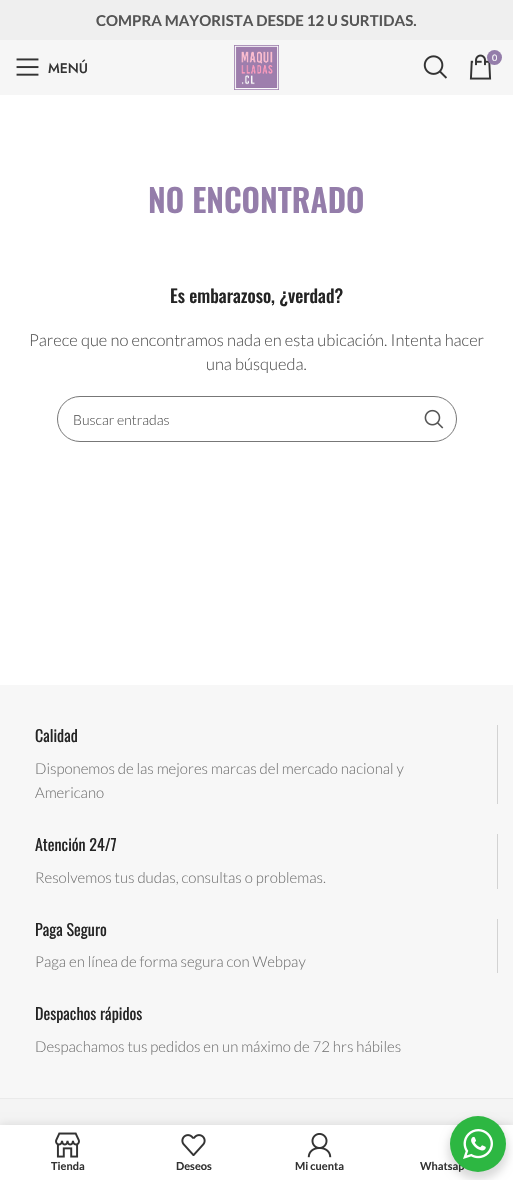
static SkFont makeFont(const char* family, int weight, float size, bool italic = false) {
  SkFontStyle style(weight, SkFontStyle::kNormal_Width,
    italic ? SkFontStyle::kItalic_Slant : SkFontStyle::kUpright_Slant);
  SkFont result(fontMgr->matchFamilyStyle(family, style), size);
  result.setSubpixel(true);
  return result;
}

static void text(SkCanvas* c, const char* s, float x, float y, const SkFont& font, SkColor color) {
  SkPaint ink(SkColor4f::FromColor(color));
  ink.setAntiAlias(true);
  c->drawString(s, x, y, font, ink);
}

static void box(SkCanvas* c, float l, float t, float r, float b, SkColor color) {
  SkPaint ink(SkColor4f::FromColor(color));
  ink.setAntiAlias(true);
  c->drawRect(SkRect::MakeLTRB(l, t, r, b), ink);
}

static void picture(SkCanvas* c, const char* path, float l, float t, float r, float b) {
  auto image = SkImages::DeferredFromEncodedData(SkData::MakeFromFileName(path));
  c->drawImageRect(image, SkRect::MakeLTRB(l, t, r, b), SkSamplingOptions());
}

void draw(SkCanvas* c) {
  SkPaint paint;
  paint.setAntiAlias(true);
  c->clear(0xffffffff);
  box(c, 0, 0, 513, 40, 0xffefefef);
  SkFont face1 = makeFont("Lato", 700, 15);
  text(c, "COMPRA MAYORISTA DESDE 12 U SURTIDAS.", 96, 26, face1, 0xff555555);
  box(c, 0, 40, 513, 95, 0xfff6f6f6);
  picture(c, "img_01.png", 234, 45, 279, 90);
  picture(c, "img_02.png", 423, 55, 447, 79);
  picture(c, "img_03.png", 469, 54, 492, 80);
  paint.setColor(0xff947daa);
  c->drawCircle(494.5f, 57.5f, 7.5f, paint);
  SkFont face2 = makeFont("Lato", 400, 9);
  text(c, "0", 492, 61, face2, 0xffffffff);
  picture(c, "img_04.png", 16, 58, 39, 76);
  SkFont face3 = makeFont("Jost", 500, 14);
  text(c, "MENÚ", 48, 73, face3, 0xff333333);
  SkFont face4 = makeFont("Oswald", 600, 32);
  text(c, "NO ENCONTRADO", 148, 213, face4, 0xff947daa);
  SkFont face5 = makeFont("Oswald", 500, 18);
  text(c, "Es embarazoso, ¿verdad?", 170, 303, face5, 0xff242424);
  SkFont face6 = makeFont("Lato", 300, 16.5f);
  text(c, "Parece que no encontramos nada en esta ubicación. Intenta hacer", 29, 346, face6, 0xff555555);
  text(c, "una búsqueda.", 206, 370, face6, 0xff555555);
  paint.setStyle(SkPaint::kStroke_Style);
  paint.setStrokeWidth(1);
  paint.setColor(0xff777777);
  c->drawRoundRect(SkRect::MakeLTRB(57.5f, 396.5f, 456.5f, 441.5f), 22.5f, 22.5f, paint);
  SkFont face7 = makeFont("Lato", 300, 14);
  text(c, "Buscar entradas", 73, 425, face7, 0xff555555);
  picture(c, "img_05.png", 424, 409, 444, 429);
  box(c, 0, 685, 513, 1098, 0xfff7f7f7);
  box(c, 0, 1098, 513, 1099, 0xffeaeaea);
  box(c, 497, 725, 498, 804, 0xffd3d3d3);
  SkFont face8 = makeFont("Oswald", 400, 16);
  text(c, "Calidad", 35, 742, face8, 0xff242424);
  SkFont face9 = makeFont("Lato", 300, 15);
  text(c, "Disponemos de las mejores marcas del mercado nacional y", 35, 774, face9, 0xff767676);
  text(c, "Americano", 35, 798, face9, 0xff767676);
  box(c, 497, 834, 498, 889, 0xffd3d3d3);
  text(c, "Atención 24/7", 35, 851, face8, 0xff242424);
  text(c, "Resolvemos tus dudas, consultas o problemas.", 35, 883, face9, 0xff767676);
  box(c, 497, 919, 498, 973, 0xffd3d3d3);
  text(c, "Paga Seguro", 35, 936, face8, 0xff242424);
  text(c, "Paga en línea de forma segura con Webpay", 35, 967, face9, 0xff767676);
  text(c, "Despachos rápidos", 35, 1020, face8, 0xff242424);
  text(c, "Despachamos tus pedidos en un máximo de 72 hrs hábiles", 35, 1052, face9, 0xff767676);
  box(c, 0, 1099, 513, 1125, 0xfff4f4f4);
  paint.setStyle(SkPaint::kFill_Style);
  paint.setColor(0x1f000000);
  paint.setMaskFilter(SkMaskFilter::MakeBlur(kNormal_SkBlurStyle, 4.5f));
  c->drawRect(SkRect::MakeLTRB(0, 1125, 513, 1180), paint);
  paint.setMaskFilter(nullptr);
  box(c, 0, 1125, 513, 1180, 0xffffffff);
  picture(c, "img_06.png", 55, 1132, 80, 1158);
  SkFont face10 = makeFont("Lato", 700, 11);
  text(c, "Tienda", 51, 1170, face10, 0xff333333);
  picture(c, "img_07.png", 181, 1134, 206, 1156);
  text(c, "Deseos", 176, 1170, face10, 0xff333333);
  picture(c, "img_08.png", 307, 1133, 332, 1158);
  text(c, "Mi cuenta", 295, 1170, face10, 0xff333333);
  text(c, "Whatsap", 420, 1170, face10, 0xff333333);
  paint.setColor(0x24000000);
  paint.setMaskFilter(SkMaskFilter::MakeBlur(kNormal_SkBlurStyle, 4));
  c->drawRoundRect(SkRect::MakeLTRB(448, 1120, 508, 1180), 30, 30, paint);
  paint.setMaskFilter(nullptr);
  paint.setColor(0xff2db742);
  c->drawCircle(478, 1144, 28, paint);
  picture(c, "img_09.png", 463, 1129, 493, 1159);
}
